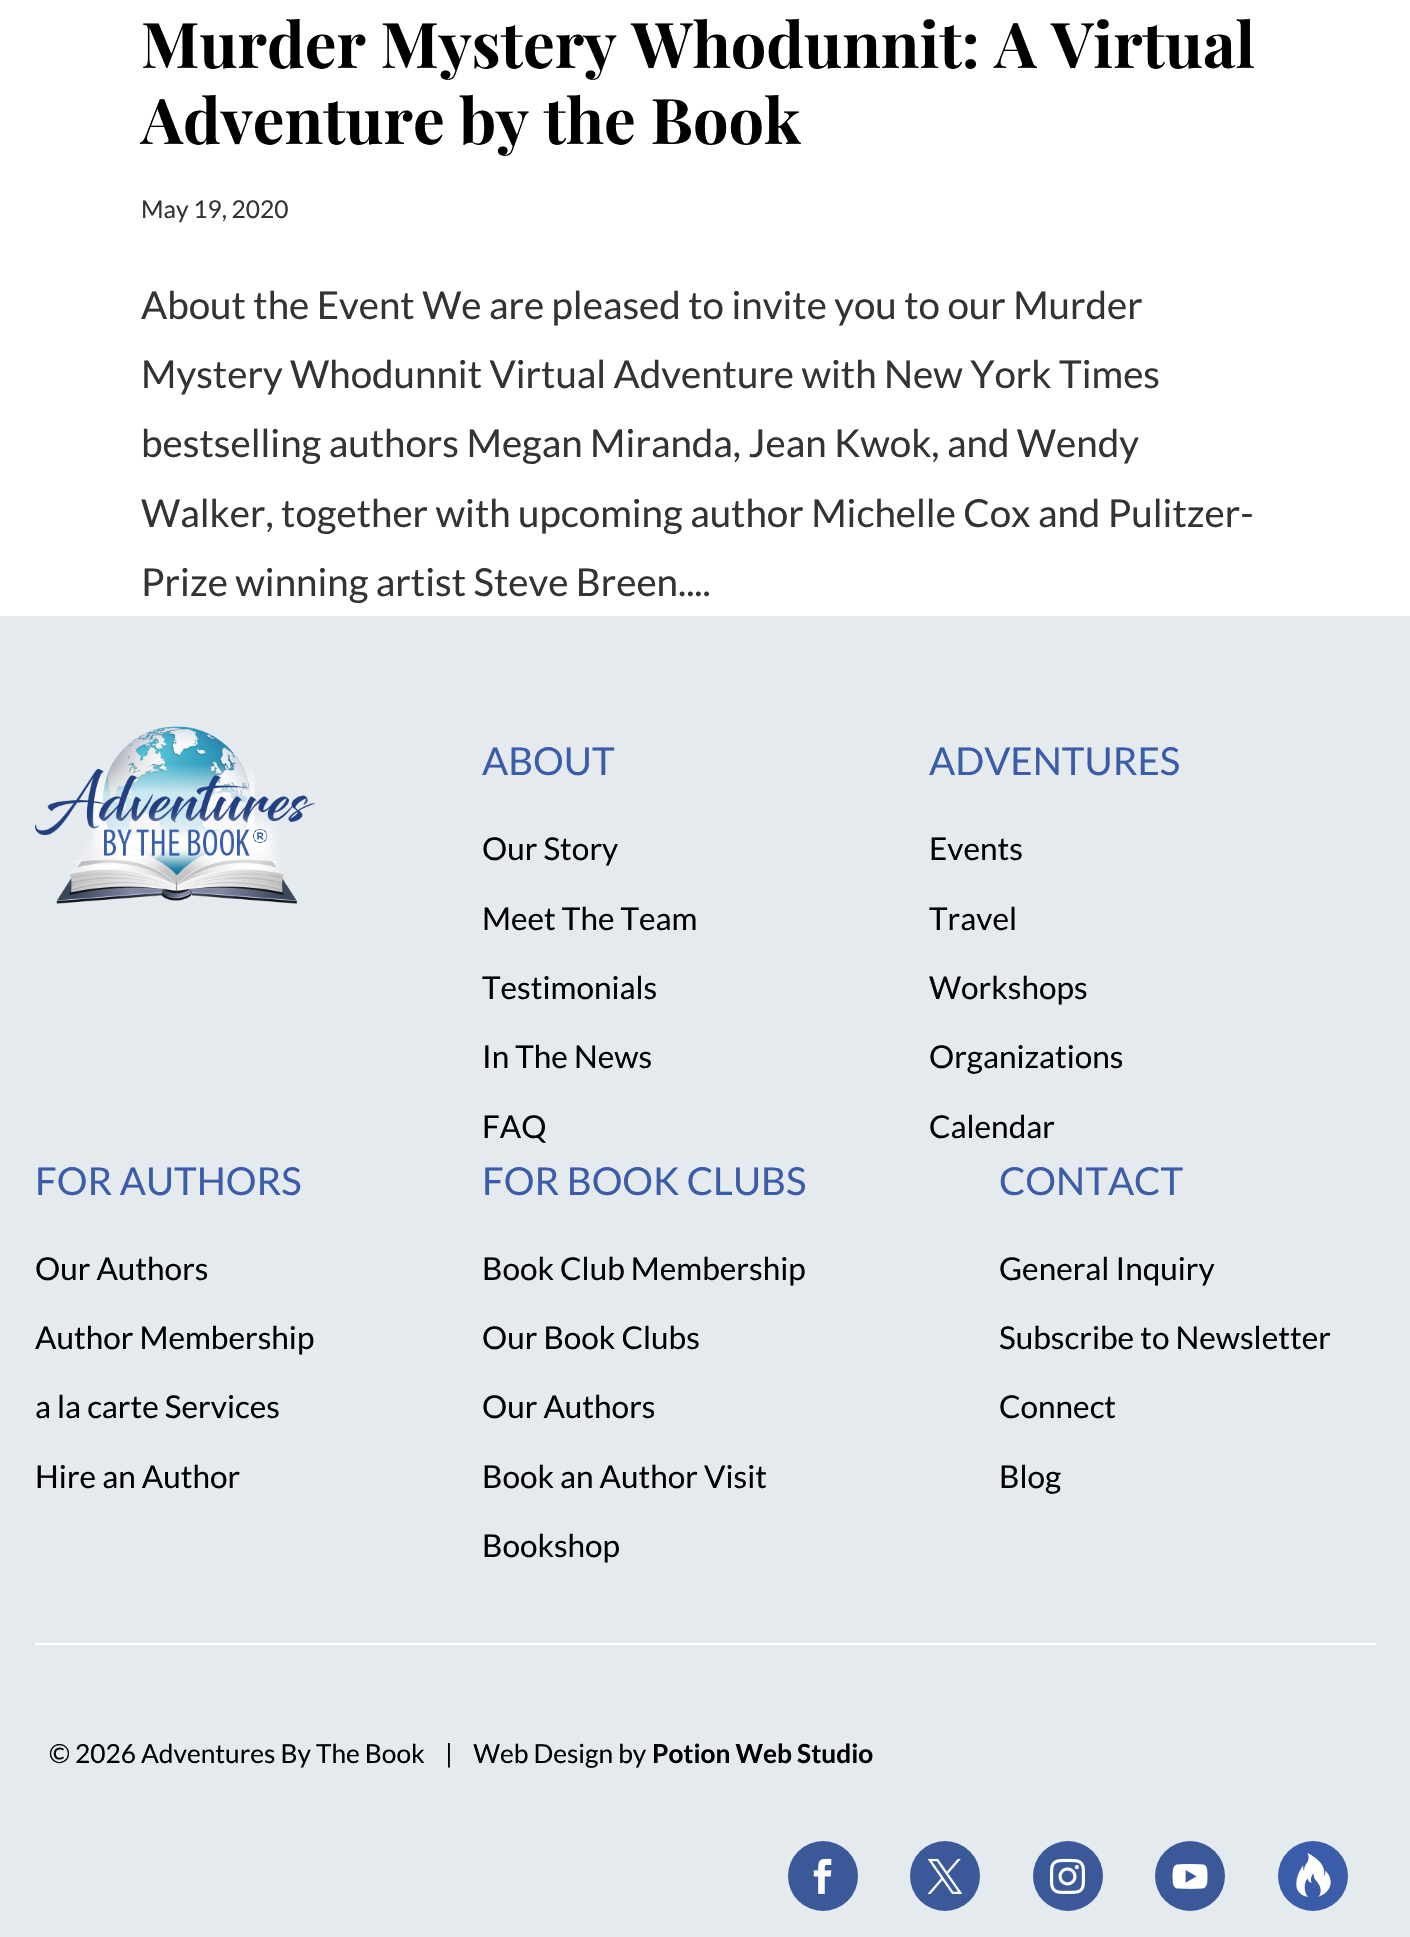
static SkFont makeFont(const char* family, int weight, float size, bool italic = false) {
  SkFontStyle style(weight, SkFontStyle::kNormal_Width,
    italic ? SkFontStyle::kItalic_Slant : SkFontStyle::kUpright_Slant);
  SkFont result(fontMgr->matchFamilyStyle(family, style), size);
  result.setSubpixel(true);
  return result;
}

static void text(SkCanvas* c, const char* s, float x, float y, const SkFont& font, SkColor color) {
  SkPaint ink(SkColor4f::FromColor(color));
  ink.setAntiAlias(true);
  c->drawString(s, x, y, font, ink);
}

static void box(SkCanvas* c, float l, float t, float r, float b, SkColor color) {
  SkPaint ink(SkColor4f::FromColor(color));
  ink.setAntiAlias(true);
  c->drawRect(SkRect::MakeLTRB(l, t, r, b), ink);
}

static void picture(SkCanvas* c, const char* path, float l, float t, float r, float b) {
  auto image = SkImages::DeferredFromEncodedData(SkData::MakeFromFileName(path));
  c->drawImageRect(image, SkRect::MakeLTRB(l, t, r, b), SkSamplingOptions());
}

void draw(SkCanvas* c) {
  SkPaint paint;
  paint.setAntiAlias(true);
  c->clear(0xffffffff);
  SkFont face1 = makeFont("Playfair Display", 700, 63);
  text(c, "Murder Mystery Whodunnit: A Virtual", 141, 68, face1, 0xff000000);
  text(c, "Adventure by the Book", 141, 144, face1, 0xff000000);
  SkFont face2 = makeFont("Lato", 400, 24.5f);
  text(c, "May 19, 2020", 141, 218, face2, 0xff333333);
  SkFont face3 = makeFont("Lato", 400, 38.5f);
  text(c, "About the Event We are pleased to invite you to our Murder", 141, 319, face3, 0xff333333);
  text(c, "Mystery Whodunnit Virtual Adventure with New York Times", 141, 388, face3, 0xff333333);
  text(c, "bestselling authors Megan Miranda, Jean Kwok, and Wendy", 141, 457, face3, 0xff333333);
  text(c, "Walker, together with upcoming author Michelle Cox and Pulitzer-", 141, 527, face3, 0xff333333);
  text(c, "Prize winning artist Steve Breen....", 141, 596, face3, 0xff333333);
  box(c, 0, 616, 1410, 1937, 0xffe4eaee);
  box(c, 35, 1643, 1376, 1645, 0xffffffff);
  picture(c, "img_01.png", 35, 726, 315, 904);
  text(c, "ABOUT", 482, 775, face3, 0xff3b5ca9);
  SkFont face4 = makeFont("Lato", 400, 31.5f);
  text(c, "Our Story", 482, 860, face4, 0xff000000);
  text(c, "Meet The Team", 482, 930, face4, 0xff000000);
  text(c, "Testimonials", 482, 999, face4, 0xff000000);
  text(c, "In The News", 482, 1068, face4, 0xff000000);
  text(c, "FAQ", 482, 1138, face4, 0xff000000);
  text(c, "ADVENTURES", 929, 775, face3, 0xff3b5ca9);
  text(c, "Events", 929, 860, face4, 0xff000000);
  text(c, "Travel", 929, 930, face4, 0xff000000);
  text(c, "Workshops", 929, 999, face4, 0xff000000);
  text(c, "Organizations", 929, 1068, face4, 0xff000000);
  text(c, "Calendar", 929, 1138, face4, 0xff000000);
  text(c, "FOR AUTHORS", 35, 1195, face3, 0xff3b5ca9);
  text(c, "Our Authors", 35, 1280, face4, 0xff000000);
  text(c, "Author Membership", 35, 1349, face4, 0xff000000);
  text(c, "a la carte Services", 35, 1418, face4, 0xff000000);
  text(c, "Hire an Author", 35, 1488, face4, 0xff000000);
  text(c, "FOR BOOK CLUBS", 482, 1195, face3, 0xff3b5ca9);
  text(c, "Book Club Membership", 482, 1280, face4, 0xff000000);
  text(c, "Our Book Clubs", 482, 1349, face4, 0xff000000);
  text(c, "Our Authors", 482, 1418, face4, 0xff000000);
  text(c, "Book an Author Visit", 482, 1488, face4, 0xff000000);
  text(c, "Bookshop", 482, 1557, face4, 0xff000000);
  text(c, "CONTACT", 999, 1195, face3, 0xff3b5ca9);
  text(c, "General Inquiry", 999, 1280, face4, 0xff000000);
  text(c, "Subscribe to Newsletter", 999, 1349, face4, 0xff000000);
  text(c, "Connect", 999, 1418, face4, 0xff000000);
  text(c, "Blog", 999, 1488, face4, 0xff000000);
  SkFont face5 = makeFont("Lato", 400, 26.25f);
  text(c, "© 2026 Adventures By The Book    |    Web Design by", 49, 1763, face5, 0xff000000);
  SkFont face6 = makeFont("Lato", 700, 26.25f);
  text(c, "Potion Web Studio", 652, 1763, face6, 0xff000000);
  paint.setColor(0xff3b5998);
  c->drawCircle(823, 1876, 35, paint);
  picture(c, "img_02.png", 813, 1858, 832, 1894);
  c->drawCircle(945, 1876, 35, paint);
  picture(c, "img_03.png", 927, 1858, 963, 1894);
  c->drawCircle(1068, 1876, 35, paint);
  picture(c, "img_04.png", 1050, 1858, 1085, 1894);
  c->drawCircle(1190, 1876, 35, paint);
  picture(c, "img_05.png", 1172, 1864, 1208, 1889);
  paint.setColor(0xff3b5ca9);
  c->drawCircle(1313, 1876, 35, paint);
  picture(c, "img_06.png", 1296, 1852, 1331, 1897);
}
